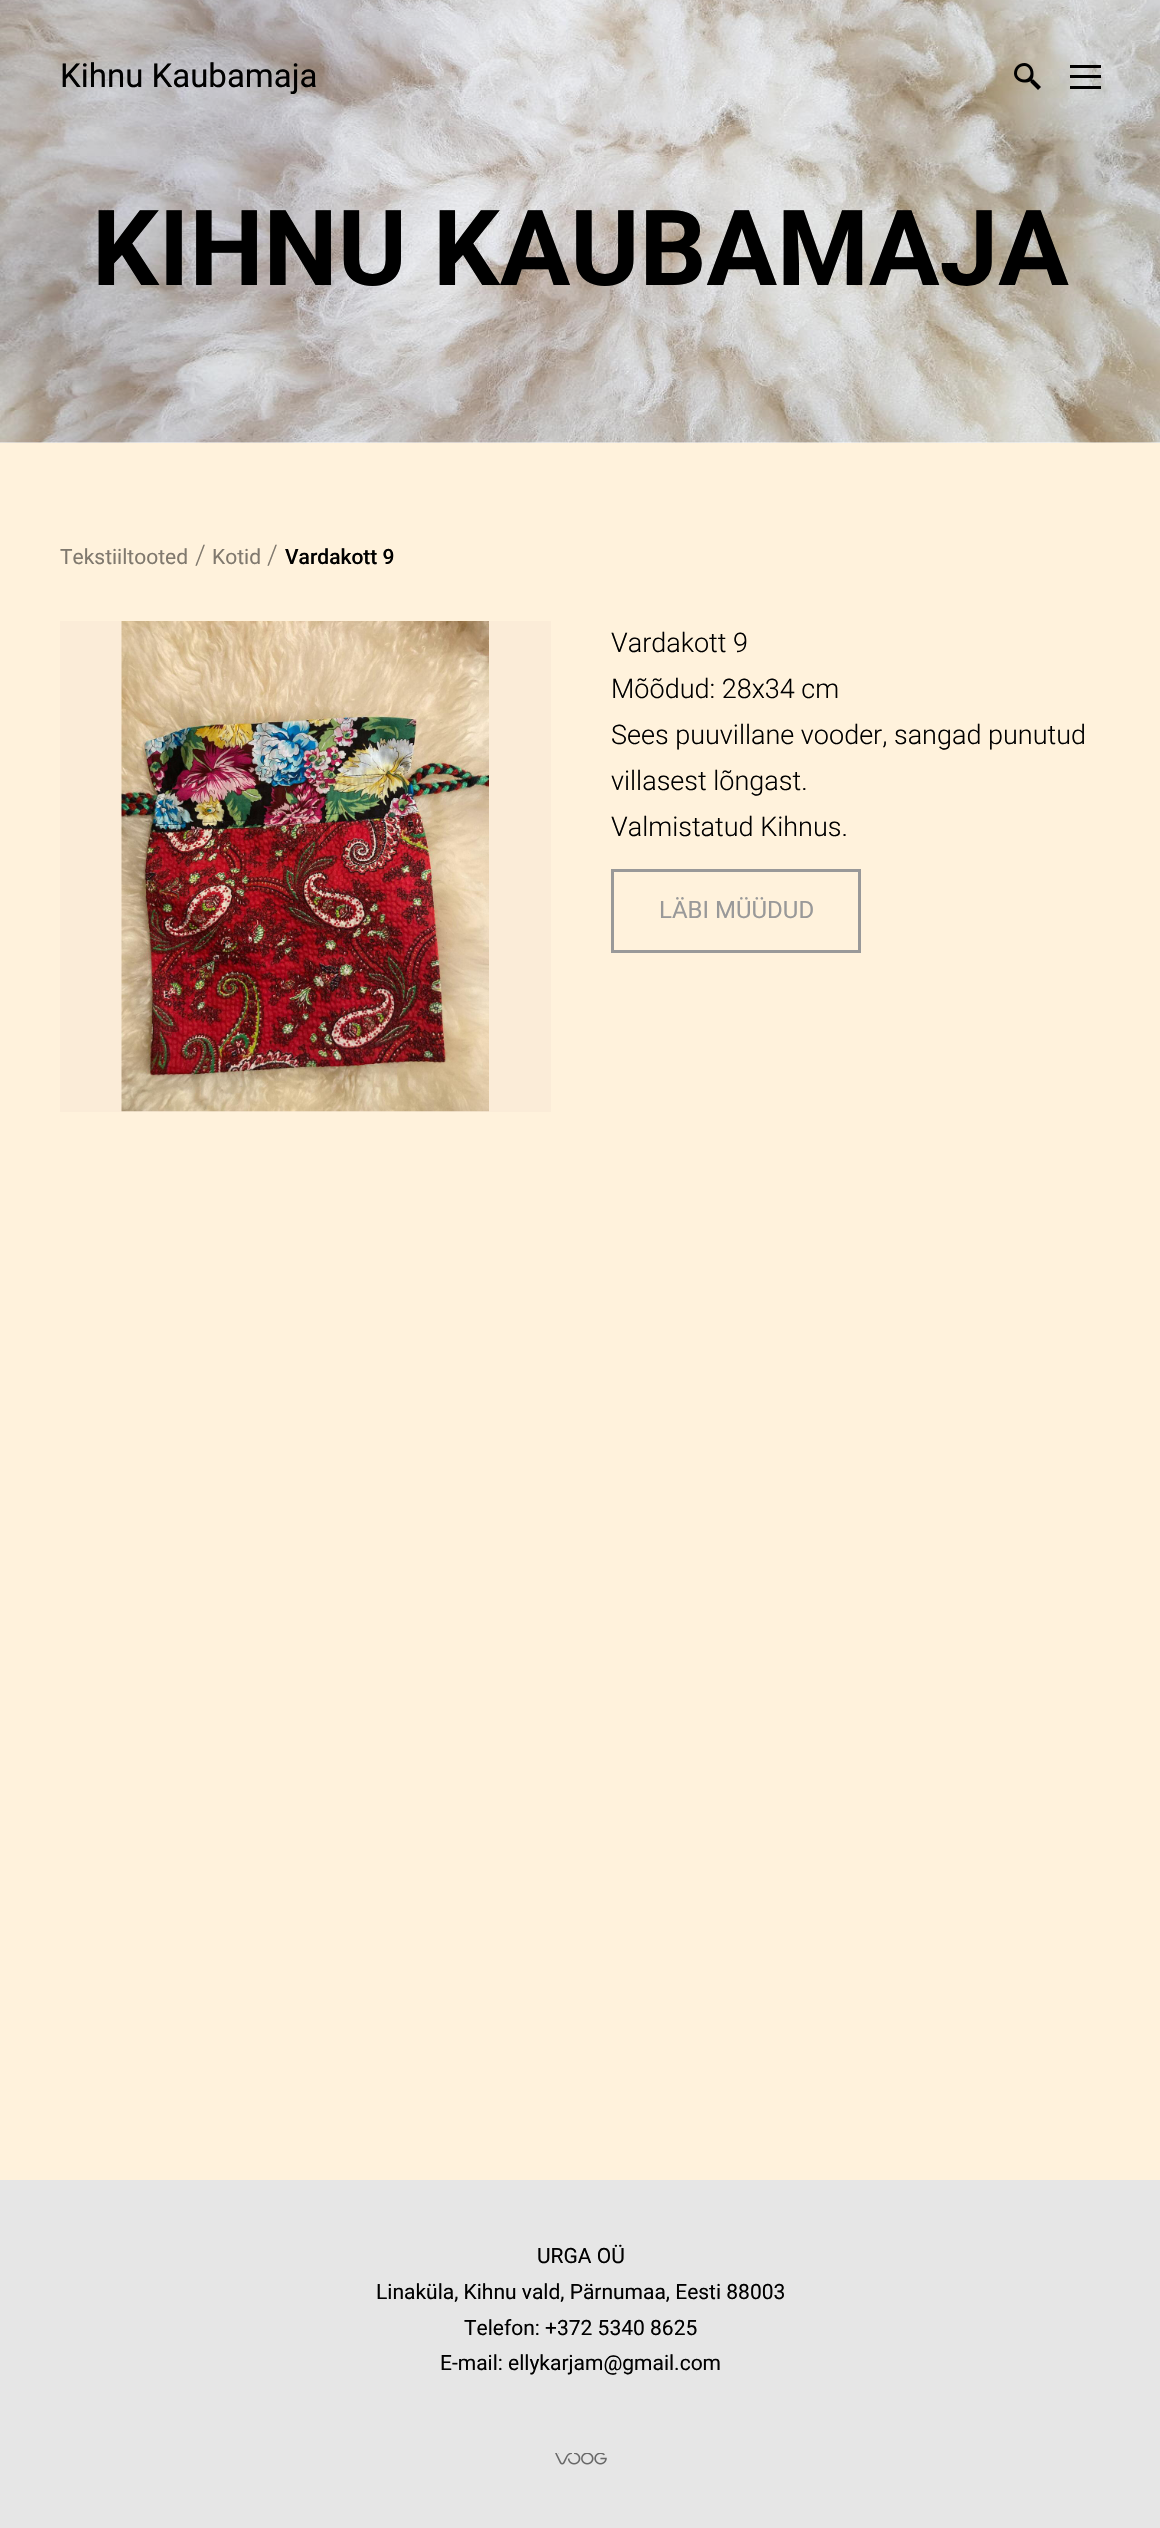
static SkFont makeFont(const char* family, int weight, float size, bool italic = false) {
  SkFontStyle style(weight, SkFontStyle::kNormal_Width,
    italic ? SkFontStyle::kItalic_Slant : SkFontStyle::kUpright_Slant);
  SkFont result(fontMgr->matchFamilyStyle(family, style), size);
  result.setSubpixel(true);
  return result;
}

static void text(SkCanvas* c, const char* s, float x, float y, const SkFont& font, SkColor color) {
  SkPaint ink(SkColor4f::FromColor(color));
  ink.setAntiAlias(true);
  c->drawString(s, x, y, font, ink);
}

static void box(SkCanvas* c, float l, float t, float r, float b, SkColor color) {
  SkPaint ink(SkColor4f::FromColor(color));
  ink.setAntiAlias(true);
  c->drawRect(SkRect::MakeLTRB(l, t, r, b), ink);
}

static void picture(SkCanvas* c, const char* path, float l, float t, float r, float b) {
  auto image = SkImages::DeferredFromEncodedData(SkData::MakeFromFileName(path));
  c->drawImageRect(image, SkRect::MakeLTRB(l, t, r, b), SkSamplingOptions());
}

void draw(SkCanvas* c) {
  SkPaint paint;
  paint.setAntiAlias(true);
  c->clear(0xffffffff);
  picture(c, "img_01.png", 0, 0, 1160, 443);
  SkFont face1 = makeFont("Roboto", 400, 33);
  text(c, "Kihnu Kaubamaja", 60, 87, face1, 0xff000000);
  picture(c, "img_02.png", 1014, 63, 1041, 90);
  box(c, 1070, 65, 1101, 68, 0xff000000);
  box(c, 1070, 75, 1101, 78, 0xff000000);
  box(c, 1070, 86, 1101, 89, 0xff000000);
  SkFont face2 = makeFont("Roboto", 700, 105);
  text(c, "KIHNU KAUBAMAJA", 92, 285, face2, 0xff000000);
  box(c, 0, 443, 1160, 2180, 0xfffff2dc);
  SkFont face3 = makeFont("Roboto", 400, 21);
  text(c, "Tekstiiltooted", 60, 564, face3, 0xff80796e);
  SkFont face4 = makeFont("Roboto", 300, 27);
  text(c, "/", 195, 564, face4, 0xff80796e);
  text(c, "Kotid", 212, 564, face3, 0xff80796e);
  text(c, "/", 267, 564, face4, 0xff80796e);
  SkFont face5 = makeFont("Roboto", 500, 21);
  text(c, "Vardakott 9", 285, 564, face5, 0xff000000);
  box(c, 60, 621, 551, 1112, 0xfffbecd8);
  picture(c, "img_03.png", 121, 621, 489, 1112);
  text(c, "Vardakott 9", 611, 652, face4, 0xff000000);
  text(c, "Mõõdud: 28x34 cm", 611, 698, face4, 0xff000000);
  text(c, "Sees puuvillane vooder, sangad punutud", 611, 744, face4, 0xff000000);
  text(c, "villasest lõngast.", 611, 790, face4, 0xff000000);
  text(c, "Valmistatud Kihnus.", 611, 836, face4, 0xff000000);
  paint.setStyle(SkPaint::kStroke_Style);
  paint.setStrokeWidth(3);
  paint.setColor(0xff999999);
  c->drawRect(SkRect::MakeLTRB(612.5f, 870.5f, 859.5f, 951.5f), paint);
  SkFont face6 = makeFont("Roboto", 400, 24);
  text(c, "LÄBI MÜÜDUD", 659, 918, face6, 0xff999999);
  box(c, 0, 2180, 1160, 2528, 0xffe6e6e6);
  text(c, "URGA OÜ", 537, 2263, face3, 0xff000000);
  text(c, "Linaküla, Kihnu vald, Pärnumaa, Eesti 88003", 376, 2299, face3, 0xff000000);
  text(c, "Telefon: +372 5340 8625", 464, 2335, face3, 0xff000000);
  text(c, "E-mail: ellykarjam@gmail.com", 440, 2370, face3, 0xff000000);
  picture(c, "img_04.png", 555, 2453, 607, 2465);
}
